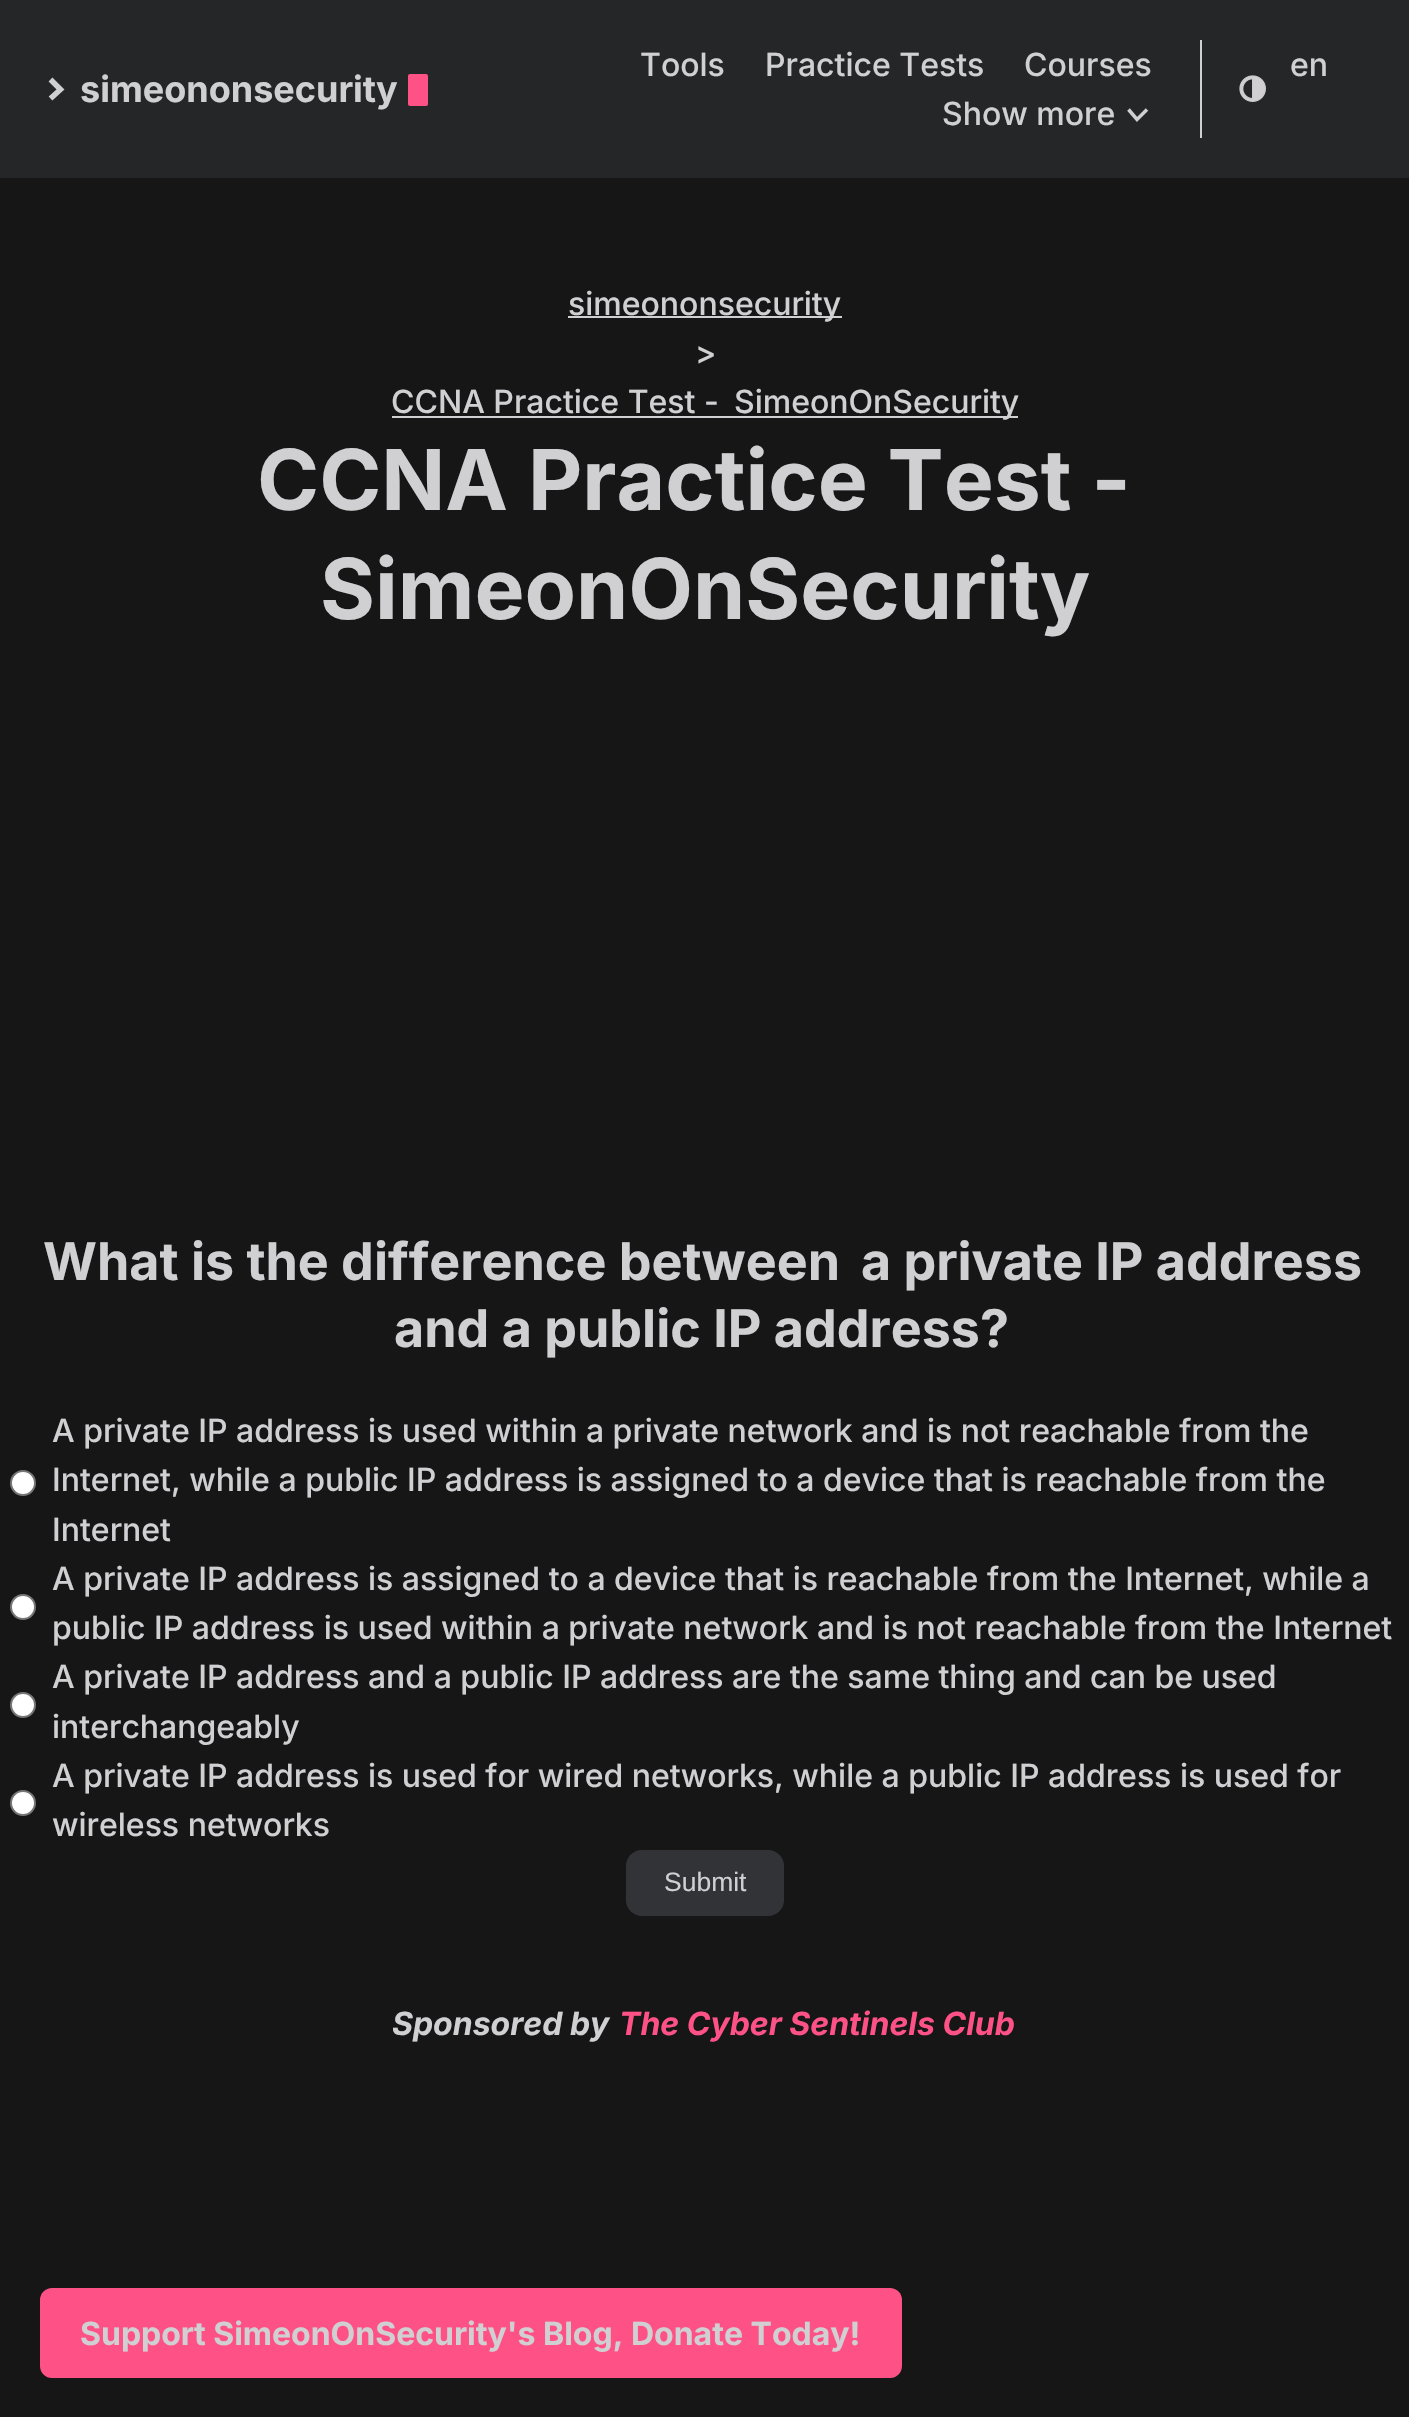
static SkFont makeFont(const char* family, int weight, float size, bool italic = false) {
  SkFontStyle style(weight, SkFontStyle::kNormal_Width,
    italic ? SkFontStyle::kItalic_Slant : SkFontStyle::kUpright_Slant);
  SkFont result(fontMgr->matchFamilyStyle(family, style), size);
  result.setSubpixel(true);
  return result;
}

static void text(SkCanvas* c, const char* s, float x, float y, const SkFont& font, SkColor color) {
  SkPaint ink(SkColor4f::FromColor(color));
  ink.setAntiAlias(true);
  c->drawString(s, x, y, font, ink);
}

static void box(SkCanvas* c, float l, float t, float r, float b, SkColor color) {
  SkPaint ink(SkColor4f::FromColor(color));
  ink.setAntiAlias(true);
  c->drawRect(SkRect::MakeLTRB(l, t, r, b), ink);
}

static void roundBox(SkCanvas* c, float l, float t, float r, float b, float radius, SkColor color) {
  SkPaint ink(SkColor4f::FromColor(color));
  ink.setAntiAlias(true);
  c->drawRoundRect(SkRect::MakeLTRB(l, t, r, b), radius, radius, ink);
}

static void picture(SkCanvas* c, const char* path, float l, float t, float r, float b) {
  auto image = SkImages::DeferredFromEncodedData(SkData::MakeFromFileName(path));
  c->drawImageRect(image, SkRect::MakeLTRB(l, t, r, b), SkSamplingOptions());
}

void draw(SkCanvas* c) {
  SkPaint paint;
  paint.setAntiAlias(true);
  c->clear(0xff161617);
  box(c, 0, 0, 1409, 178, 0xff252627);
  paint.setStyle(SkPaint::kStroke_Style);
  paint.setStrokeWidth(5.5f);
  paint.setColor(0xffd0d0d3);
  c->drawPath(SkPathBuilder().moveTo(50.5f, 79.5f).lineTo(60.5f, 89.5f).lineTo(50.5f, 98.5f).detach(), paint);
  SkFont face1 = makeFont("Inter", 700, 36);
  text(c, "simeononsecurity", 80, 102, face1, 0xffd0d0d3);
  roundBox(c, 408, 74, 428, 106, 2, 0xfffe5186);
  box(c, 1200, 40, 1202, 138, 0xffd0d0d3);
  SkFont face2 = makeFont("Inter", 500, 32);
  text(c, "Tools", 640, 76, face2, 0xffd0d0d3);
  text(c, "Practice Tests", 765, 76, face2, 0xffd0d0d3);
  text(c, "Courses", 1024, 76, face2, 0xffd0d0d3);
  text(c, "Show more", 942, 125, face2, 0xffd0d0d3);
  paint.setStrokeWidth(3.5f);
  c->drawPath(SkPathBuilder().moveTo(1147, 109.5f).lineTo(1137, 119.5f).lineTo(1128.5f, 109.5f).detach(), paint);
  text(c, "en", 1290, 76, face2, 0xffd0d0d3);
  picture(c, "img_01.png", 1239, 75, 1266, 102);
  box(c, 568, 316, 842, 318, 0xffd0d0d3);
  text(c, "simeononsecurity", 568, 315, face2, 0xffd0d0d3);
  text(c, ">", 695, 364, face2, 0xffd0d0d3);
  box(c, 392, 416, 1018, 418, 0xffd0d0d3);
  text(c, "CCNA Practice Test -", 391, 413, face2, 0xffd0d0d3);
  text(c, "SimeonOnSecurity", 734, 413, face2, 0xffd0d0d3);
  SkFont face3 = makeFont("Inter", 700, 84);
  text(c, "CCNA Practice Test -", 257, 510, face3, 0xffd0d0d3);
  text(c, "SimeonOnSecurity", 320, 619, face3, 0xffd0d0d3);
  SkFont face4 = makeFont("Inter", 700, 52);
  text(c, "What is the difference between", 43, 1280, face4, 0xffd0d0d3);
  text(c, "a private IP address", 861, 1280, face4, 0xffd0d0d3);
  text(c, "and a public IP address?", 394, 1347, face4, 0xffd0d0d3);
  text(c, "A private IP address is used within a private network and is not reachable from the", 52, 1442, face2, 0xffd0d0d3);
  paint.setStyle(SkPaint::kFill_Style);
  paint.setColor(0xffffffff);
  c->drawCircle(23, 1483, 12, paint);
  paint.setStyle(SkPaint::kStroke_Style);
  paint.setStrokeWidth(2);
  paint.setColor(0xff767676);
  c->drawCircle(23, 1483, 12, paint);
  text(c, "Internet, while a public IP address is assigned to a device that is reachable from the", 52, 1491, face2, 0xffd0d0d3);
  text(c, "Internet", 52, 1541, face2, 0xffd0d0d3);
  text(c, "A private IP address is assigned to a device that is reachable from the Internet, while a", 52, 1590, face2, 0xffd0d0d3);
  paint.setStyle(SkPaint::kFill_Style);
  paint.setColor(0xffffffff);
  c->drawCircle(23, 1607, 12, paint);
  paint.setStyle(SkPaint::kStroke_Style);
  paint.setColor(0xff767676);
  c->drawCircle(23, 1607, 12, paint);
  text(c, "public IP address is used within a private network and is not reachable from the Internet", 52, 1639, face2, 0xffd0d0d3);
  text(c, "A private IP address and a public IP address are the same thing and can be used", 52, 1688, face2, 0xffd0d0d3);
  paint.setStyle(SkPaint::kFill_Style);
  paint.setColor(0xffffffff);
  c->drawCircle(23, 1705, 12, paint);
  paint.setStyle(SkPaint::kStroke_Style);
  paint.setColor(0xff767676);
  c->drawCircle(23, 1705, 12, paint);
  text(c, "interchangeably", 52, 1738, face2, 0xffd0d0d3);
  text(c, "A private IP address is used for wired networks, while a public IP address is used for", 52, 1787, face2, 0xffd0d0d3);
  paint.setStyle(SkPaint::kFill_Style);
  paint.setColor(0xffffffff);
  c->drawCircle(23, 1803, 12, paint);
  paint.setStyle(SkPaint::kStroke_Style);
  paint.setColor(0xff767676);
  c->drawCircle(23, 1803, 12, paint);
  text(c, "wireless networks", 52, 1836, face2, 0xffd0d0d3);
  roundBox(c, 626, 1850, 784, 1916, 16, 0xff323337);
  SkFont face5 = makeFont("Liberation Sans", 400, 26.5f);
  text(c, "Submit", 664, 1891, face5, 0xffd0d0d3);
  SkFont face6 = makeFont("Inter", 700, 32, true);
  text(c, "Sponsored by", 392, 2035, face6, 0xffd0d0d3);
  text(c, "The Cyber Sentinels Club", 619, 2035, face6, 0xfffe5186);
  roundBox(c, 40, 2288, 902, 2378, 12, 0xfffe5186);
  SkFont face7 = makeFont("Inter", 700, 32);
  text(c, "Support SimeonOnSecurity's Blog, Donate Today!", 80, 2345, face7, 0xffd0d0d3);
}
